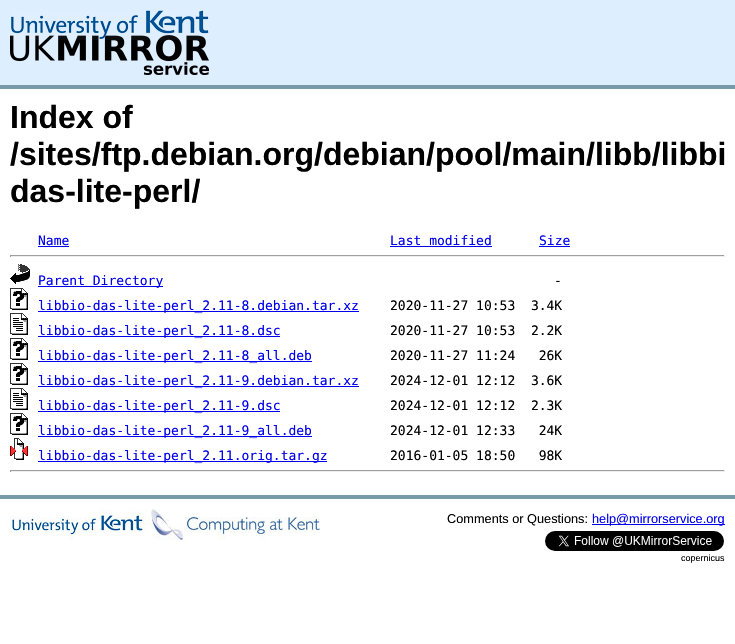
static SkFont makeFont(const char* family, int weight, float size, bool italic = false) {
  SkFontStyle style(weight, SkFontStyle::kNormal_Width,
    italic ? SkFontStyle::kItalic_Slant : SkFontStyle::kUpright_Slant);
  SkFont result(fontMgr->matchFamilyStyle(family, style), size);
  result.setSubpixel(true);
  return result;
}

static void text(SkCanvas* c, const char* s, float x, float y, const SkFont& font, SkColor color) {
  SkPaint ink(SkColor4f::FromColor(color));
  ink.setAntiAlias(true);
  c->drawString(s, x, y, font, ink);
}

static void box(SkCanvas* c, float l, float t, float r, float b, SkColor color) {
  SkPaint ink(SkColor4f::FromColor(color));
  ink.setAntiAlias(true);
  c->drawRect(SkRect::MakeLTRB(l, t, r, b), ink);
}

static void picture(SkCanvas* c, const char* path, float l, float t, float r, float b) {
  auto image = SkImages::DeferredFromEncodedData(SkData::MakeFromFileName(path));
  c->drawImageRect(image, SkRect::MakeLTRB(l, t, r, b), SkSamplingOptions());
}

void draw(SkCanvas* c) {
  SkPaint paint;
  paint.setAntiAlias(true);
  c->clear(0xffffffff);
  box(c, 0, 0, 735, 85, 0xffddeeff);
  box(c, 0, 85, 735, 89, 0xff7799aa);
  picture(c, "img_01.png", 10, 10, 209, 75);
  SkFont face1 = makeFont("Liberation Sans", 700, 32);
  text(c, "Index of", 10, 128, face1, 0xff000000);
  text(c, "/sites/ftp.debian.org/debian/pool/main/libb/libbi", 10, 165, face1, 0xff000000);
  text(c, "das-lite-perl/", 10, 202, face1, 0xff000000);
  SkFont face2 = makeFont("DejaVu Sans Mono", 400, 13);
  text(c, "Name", 38, 245, face2, 0xff0000ee);
  box(c, 38, 246, 69, 247, 0xff0000ee);
  text(c, "Last modified", 390, 245, face2, 0xff0000ee);
  box(c, 390, 246, 492, 247, 0xff0000ee);
  text(c, "Size", 539, 245, face2, 0xff0000ee);
  box(c, 539, 246, 570, 247, 0xff0000ee);
  box(c, 10, 255, 725, 256, 0xff9f9f9f);
  box(c, 724, 255, 725, 257, 0xffeeeeee);
  box(c, 10, 256, 725, 257, 0xffeeeeee);
  box(c, 10, 255, 11, 257, 0xff9f9f9f);
  picture(c, "img_02.png", 10, 264, 30, 284);
  box(c, 38, 286, 163, 287, 0xff0000ee);
  text(c, "Parent Directory", 38, 285, face2, 0xff0000ee);
  text(c, "-", 554, 285, face2, 0xff000000);
  picture(c, "img_03.png", 10, 288, 28, 310);
  box(c, 38, 311, 359, 312, 0xff0000ee);
  text(c, "libbio-das-lite-perl_2.11-8.debian.tar.xz", 38, 310, face2, 0xff0000ee);
  text(c, "2020-11-27 10:53  3.4K", 390, 310, face2, 0xff000000);
  picture(c, "img_04.png", 10, 313, 28, 335);
  box(c, 38, 336, 280, 337, 0xff0000ee);
  text(c, "libbio-das-lite-perl_2.11-8.dsc", 38, 335, face2, 0xff0000ee);
  text(c, "2020-11-27 10:53  2.2K", 390, 335, face2, 0xff000000);
  picture(c, "img_03.png", 10, 338, 28, 360);
  box(c, 38, 361, 312, 362, 0xff0000ee);
  text(c, "libbio-das-lite-perl_2.11-8_all.deb", 38, 360, face2, 0xff0000ee);
  text(c, "2020-11-27 11:24   26K", 390, 360, face2, 0xff000000);
  picture(c, "img_03.png", 10, 363, 28, 385);
  box(c, 38, 386, 359, 387, 0xff0000ee);
  text(c, "libbio-das-lite-perl_2.11-9.debian.tar.xz", 38, 385, face2, 0xff0000ee);
  text(c, "2024-12-01 12:12  3.6K", 390, 385, face2, 0xff000000);
  picture(c, "img_04.png", 10, 388, 28, 410);
  box(c, 38, 411, 280, 412, 0xff0000ee);
  text(c, "libbio-das-lite-perl_2.11-9.dsc", 38, 410, face2, 0xff0000ee);
  text(c, "2024-12-01 12:12  2.3K", 390, 410, face2, 0xff000000);
  picture(c, "img_03.png", 10, 413, 28, 435);
  box(c, 38, 436, 312, 437, 0xff0000ee);
  text(c, "libbio-das-lite-perl_2.11-9_all.deb", 38, 435, face2, 0xff0000ee);
  text(c, "2024-12-01 12:33   24K", 390, 435, face2, 0xff000000);
  picture(c, "img_05.png", 10, 438, 28, 460);
  box(c, 38, 461, 327, 462, 0xff0000ee);
  text(c, "libbio-das-lite-perl_2.11.orig.tar.gz", 38, 460, face2, 0xff0000ee);
  text(c, "2016-01-05 18:50   98K", 390, 460, face2, 0xff000000);
  box(c, 10, 470, 725, 471, 0xff9f9f9f);
  box(c, 724, 470, 725, 472, 0xffeeeeee);
  box(c, 10, 471, 725, 472, 0xffeeeeee);
  box(c, 10, 470, 11, 472, 0xff9f9f9f);
  box(c, 0, 495, 735, 499, 0xff7799aa);
  picture(c, "img_06.png", 10, 509, 320, 540);
  SkFont face3 = makeFont("Liberation Sans", 400, 12.75f);
  text(c, "Comments or Questions:", 447, 523, face3, 0xff000000);
  box(c, 592, 524, 725, 525, 0xff0000ee);
  text(c, "help@mirrorservice.org", 592, 523, face3, 0xff0000ee);
  picture(c, "img_07.png", 545, 531, 724, 551);
  SkFont face4 = makeFont("Liberation Sans", 400, 9);
  text(c, "copernicus", 681, 561, face4, 0xff000000);
}
